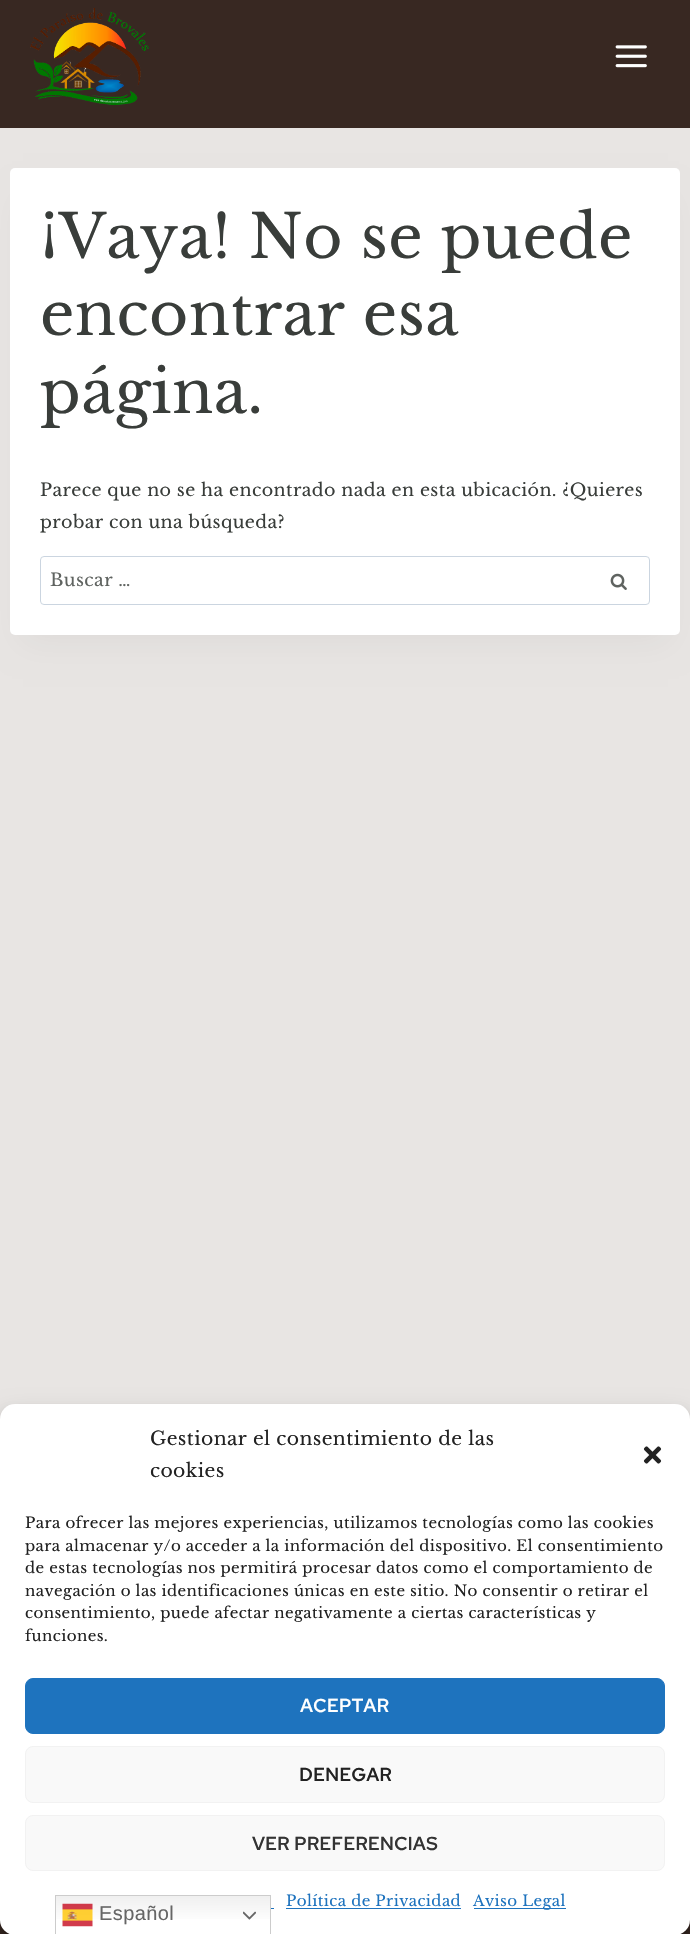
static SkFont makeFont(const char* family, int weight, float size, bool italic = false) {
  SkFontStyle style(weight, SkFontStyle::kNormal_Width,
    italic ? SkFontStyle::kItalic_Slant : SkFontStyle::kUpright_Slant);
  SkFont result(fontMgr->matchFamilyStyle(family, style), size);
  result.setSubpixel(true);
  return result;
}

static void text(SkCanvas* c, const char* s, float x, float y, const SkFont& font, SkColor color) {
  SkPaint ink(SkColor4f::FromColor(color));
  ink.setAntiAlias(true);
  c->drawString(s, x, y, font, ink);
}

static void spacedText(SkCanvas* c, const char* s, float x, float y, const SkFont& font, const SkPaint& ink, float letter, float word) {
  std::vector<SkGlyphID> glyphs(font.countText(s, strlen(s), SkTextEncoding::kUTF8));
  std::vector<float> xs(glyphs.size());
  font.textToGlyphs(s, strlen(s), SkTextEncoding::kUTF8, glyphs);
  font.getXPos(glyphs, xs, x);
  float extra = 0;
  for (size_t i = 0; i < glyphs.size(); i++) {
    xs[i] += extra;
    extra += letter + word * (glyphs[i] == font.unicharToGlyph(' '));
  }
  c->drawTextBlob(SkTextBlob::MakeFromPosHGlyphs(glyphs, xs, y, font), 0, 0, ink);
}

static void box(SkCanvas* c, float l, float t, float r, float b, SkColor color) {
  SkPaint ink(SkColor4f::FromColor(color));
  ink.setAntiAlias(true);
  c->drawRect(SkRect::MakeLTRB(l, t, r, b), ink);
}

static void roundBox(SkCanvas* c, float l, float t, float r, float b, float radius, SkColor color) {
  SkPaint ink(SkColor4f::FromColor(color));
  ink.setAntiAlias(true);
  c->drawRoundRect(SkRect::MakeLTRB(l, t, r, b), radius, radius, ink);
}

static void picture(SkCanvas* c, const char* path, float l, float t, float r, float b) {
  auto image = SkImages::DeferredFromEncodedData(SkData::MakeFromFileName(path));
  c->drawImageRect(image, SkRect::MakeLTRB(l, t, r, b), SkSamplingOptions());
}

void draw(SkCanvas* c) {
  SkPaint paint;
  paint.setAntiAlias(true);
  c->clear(0xffe8e5e3);
  box(c, 0, 0, 690, 128, 0xff382822);
  picture(c, "img_01.png", 30, 8, 149, 105);
  picture(c, "img_02.png", 615, 45, 647, 68);
  paint.setColor(0x0d000000);
  paint.setMaskFilter(SkMaskFilter::MakeBlur(kNormal_SkBlurStyle, 15.5f));
  c->drawRect(SkRect::MakeLTRB(23, 199, 668, 641), paint);
  paint.setMaskFilter(nullptr);
  roundBox(c, 10, 168, 680, 635, 5, 0xffffffff);
  SkFont face1 = makeFont("Libre Baskerville", 400, 60);
  paint.setColor(0xff393d3a);
  spacedText(c, "¡Vaya! No se puede", 40, 258, face1, paint, 0.4f, 0);
  spacedText(c, "encontrar esa", 40, 335, face1, paint, 0.4f, 0);
  spacedText(c, "página.", 40, 413, face1, paint, 0.4f, 0);
  SkFont face2 = makeFont("Libre Baskerville", 400, 17.5f);
  spacedText(c, "Parece que no se ha encontrado nada en esta ubicación. ¿Quieres", 40, 496, face2, paint, 0.4f, 0);
  spacedText(c, "probar con una búsqueda?", 40, 528, face2, paint, 0.4f, 0);
  paint.setStyle(SkPaint::kStroke_Style);
  paint.setStrokeWidth(1);
  paint.setColor(0xffcbd5e0);
  c->drawRoundRect(SkRect::MakeLTRB(40.5f, 556.5f, 649.5f, 604.5f), 3.5f, 3.5f, paint);
  paint.setStyle(SkPaint::kFill_Style);
  paint.setColor(0xff5f6360);
  spacedText(c, "Buscar …", 50, 586, face2, paint, 0.4f, 0);
  picture(c, "img_03.png", 610, 573, 627, 590);
  box(c, 0, 1920, 690, 1934, 0xff382822);
  paint.setColor(0x3b000000);
  paint.setMaskFilter(SkMaskFilter::MakeBlur(kNormal_SkBlurStyle, 4));
  c->drawRoundRect(SkRect::MakeLTRB(0, 1411, 690, 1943), 15, 15, paint);
  paint.setMaskFilter(nullptr);
  paint.setColor(0x30000000);
  paint.setMaskFilter(SkMaskFilter::MakeBlur(kNormal_SkBlurStyle, 12.5f));
  c->drawRoundRect(SkRect::MakeLTRB(0, 1416, 690, 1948), 15, 15, paint);
  paint.setMaskFilter(nullptr);
  roundBox(c, 0, 1404, 690, 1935, 15, 0xffffffff);
  SkFont face3 = makeFont("Libre Baskerville", 400, 18.75f);
  paint.setColor(0xff222222);
  spacedText(c, "Gestionar el consentimiento de las", 150, 1445, face3, paint, 0.4f, 0);
  spacedText(c, "cookies", 150, 1477, face3, paint, 0.4f, 0);
  picture(c, "img_04.png", 643, 1446, 662, 1464);
  SkFont face4 = makeFont("Libre Baskerville", 400, 15);
  spacedText(c, "Para ofrecer las mejores experiencias, utilizamos tecnologías como las cookies", 25, 1528, face4, paint, 0.4f, 0);
  spacedText(c, "para almacenar y/o acceder a la información del dispositivo. El consentimiento", 25, 1551, face4, paint, 0.4f, 0);
  spacedText(c, "de estas tecnologías nos permitirá procesar datos como el comportamiento de", 25, 1573, face4, paint, 0.4f, 0);
  spacedText(c, "navegación o las identificaciones únicas en este sitio. No consentir o retirar el", 25, 1596, face4, paint, 0.4f, 0);
  spacedText(c, "consentimiento, puede afectar negativamente a ciertas características y", 25, 1618, face4, paint, 0.4f, 0);
  spacedText(c, "funciones.", 25, 1641, face4, paint, 0.4f, 0);
  paint.setColor(0xff1e73be);
  c->drawRoundRect(SkRect::MakeLTRB(25.5f, 1678.5f, 664.5f, 1733.5f), 7.5f, 7.5f, paint);
  paint.setStyle(SkPaint::kStroke_Style);
  c->drawRoundRect(SkRect::MakeLTRB(25.5f, 1678.5f, 664.5f, 1733.5f), 7.5f, 7.5f, paint);
  SkFont face5 = makeFont("Red Hat Text", 500, 18.75f);
  text(c, "ACEPTAR", 300, 1712, face5, 0xffffffff);
  paint.setStyle(SkPaint::kFill_Style);
  paint.setColor(0xfff9f9f9);
  c->drawRoundRect(SkRect::MakeLTRB(25.5f, 1746.5f, 664.5f, 1802.5f), 7.5f, 7.5f, paint);
  paint.setStyle(SkPaint::kStroke_Style);
  paint.setColor(0xfff2f2f2);
  c->drawRoundRect(SkRect::MakeLTRB(25.5f, 1746.5f, 664.5f, 1802.5f), 7.5f, 7.5f, paint);
  text(c, "DENEGAR", 299, 1781, face5, 0xff222222);
  paint.setStyle(SkPaint::kFill_Style);
  paint.setColor(0xfff9f9f9);
  c->drawRoundRect(SkRect::MakeLTRB(25.5f, 1815.5f, 664.5f, 1870.5f), 7.5f, 7.5f, paint);
  paint.setStyle(SkPaint::kStroke_Style);
  paint.setColor(0xfff2f2f2);
  c->drawRoundRect(SkRect::MakeLTRB(25.5f, 1815.5f, 664.5f, 1870.5f), 7.5f, 7.5f, paint);
  text(c, "VER PREFERENCIAS", 252, 1850, face5, 0xff333333);
  box(c, 271, 1908, 274, 1909, 0xff1e73be);
  paint.setStyle(SkPaint::kFill_Style);
  paint.setColor(0xff1e73be);
  spacedText(c, "Política de Privacidad", 286, 1906, face4, paint, 0.4f, 0);
  box(c, 286, 1908, 461, 1909, 0xff1e73be);
  box(c, 474, 1908, 566, 1909, 0xff1e73be);
  spacedText(c, "Aviso Legal", 473, 1906, face4, paint, 0.4f, 0);
  {
    const SkColor colors[] = {0xffefefef, 0xffffffff};
    const float stops[] = {0, 0.7f};
    const SkPoint ends[] = {{163, 1895}, {163, 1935}};
    paint.setShader(SkGradientShader::MakeLinear(ends, colors, stops, 2, SkTileMode::kClamp));
    paint.setAlpha(255);
  }
  c->drawRect(SkRect::MakeLTRB(56, 1896, 270, 1919), paint);
  paint.setStyle(SkPaint::kStroke_Style);
  paint.setShader(nullptr);
  paint.setColor(0xffcccccc);
  c->drawRect(SkRect::MakeLTRB(55.5f, 1895.5f, 270.5f, 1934.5f), paint);
  picture(c, "img_05.png", 62, 1903, 93, 1927);
  SkFont face6 = makeFont("Liberation Sans", 400, 20);
  paint.setStyle(SkPaint::kFill_Style);
  paint.setColor(0xff666666);
  spacedText(c, "Español", 99, 1920, face6, paint, 0.4f, 0);
  picture(c, "img_06.png", 243, 1911, 256, 1920);
}
